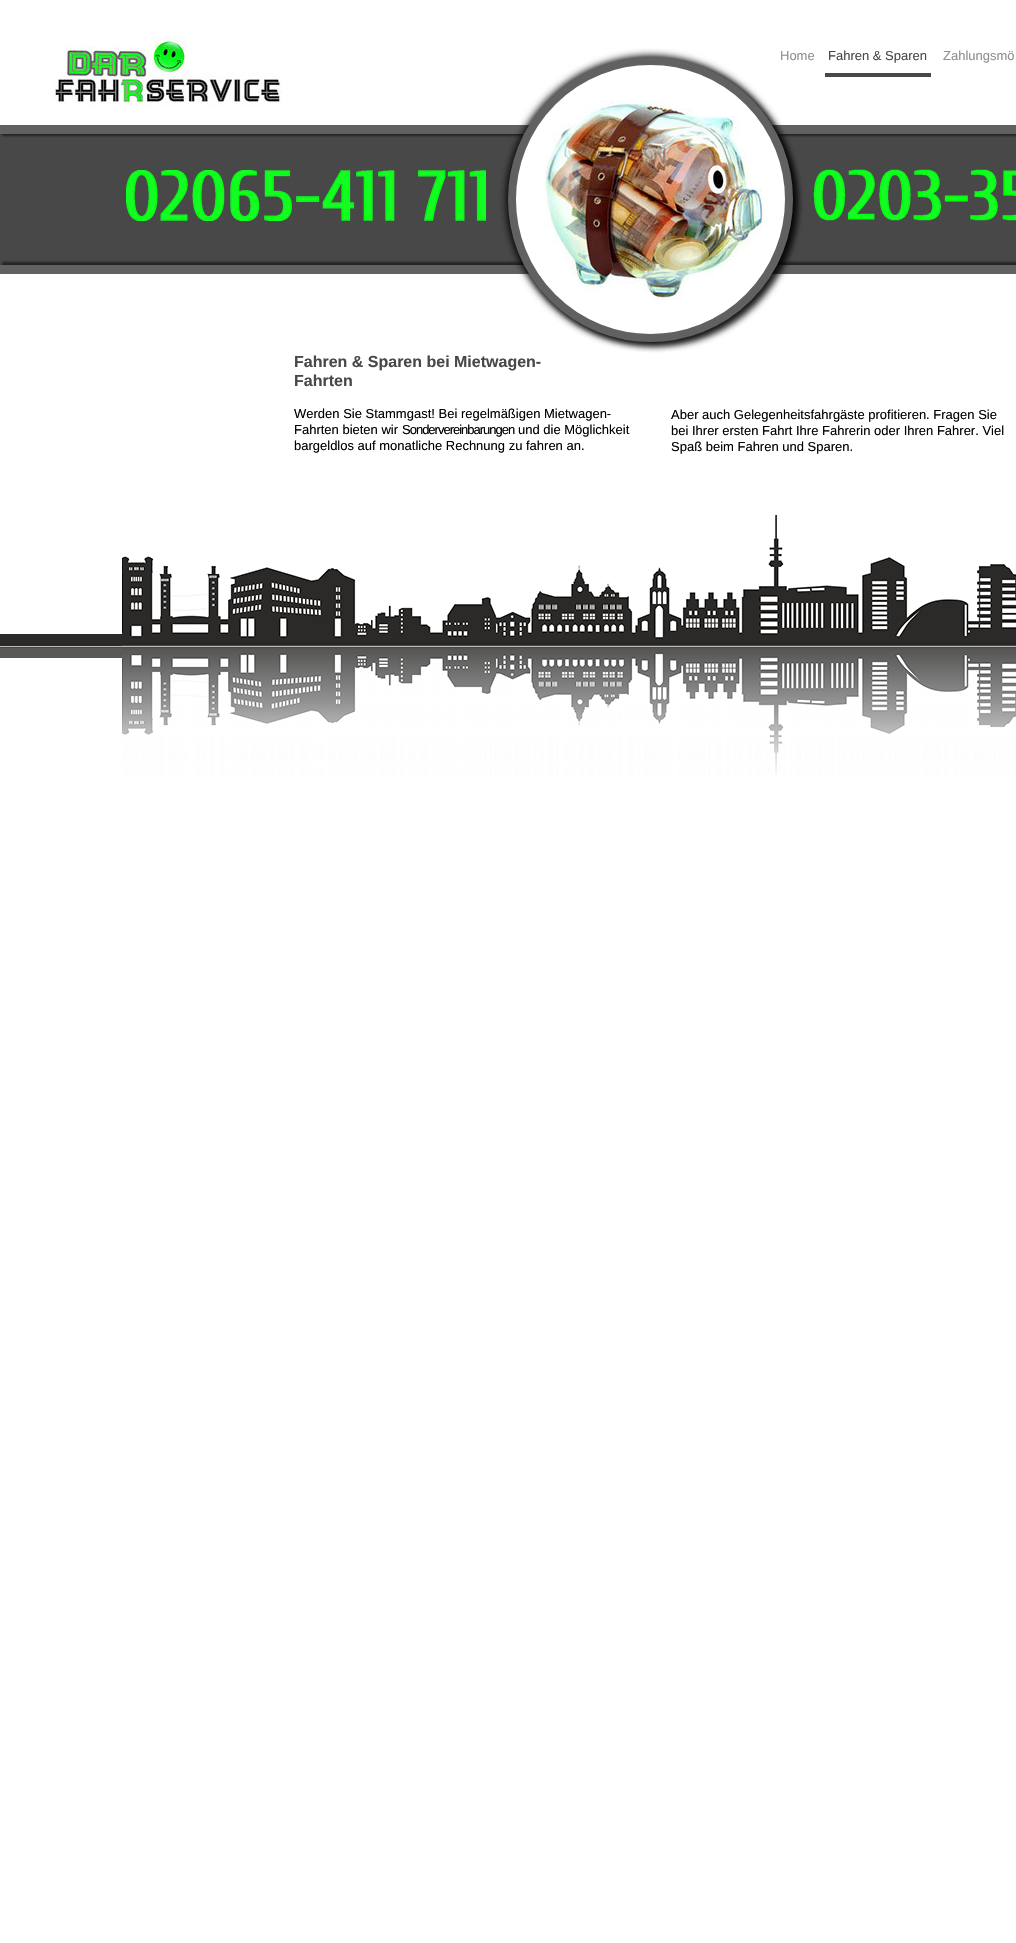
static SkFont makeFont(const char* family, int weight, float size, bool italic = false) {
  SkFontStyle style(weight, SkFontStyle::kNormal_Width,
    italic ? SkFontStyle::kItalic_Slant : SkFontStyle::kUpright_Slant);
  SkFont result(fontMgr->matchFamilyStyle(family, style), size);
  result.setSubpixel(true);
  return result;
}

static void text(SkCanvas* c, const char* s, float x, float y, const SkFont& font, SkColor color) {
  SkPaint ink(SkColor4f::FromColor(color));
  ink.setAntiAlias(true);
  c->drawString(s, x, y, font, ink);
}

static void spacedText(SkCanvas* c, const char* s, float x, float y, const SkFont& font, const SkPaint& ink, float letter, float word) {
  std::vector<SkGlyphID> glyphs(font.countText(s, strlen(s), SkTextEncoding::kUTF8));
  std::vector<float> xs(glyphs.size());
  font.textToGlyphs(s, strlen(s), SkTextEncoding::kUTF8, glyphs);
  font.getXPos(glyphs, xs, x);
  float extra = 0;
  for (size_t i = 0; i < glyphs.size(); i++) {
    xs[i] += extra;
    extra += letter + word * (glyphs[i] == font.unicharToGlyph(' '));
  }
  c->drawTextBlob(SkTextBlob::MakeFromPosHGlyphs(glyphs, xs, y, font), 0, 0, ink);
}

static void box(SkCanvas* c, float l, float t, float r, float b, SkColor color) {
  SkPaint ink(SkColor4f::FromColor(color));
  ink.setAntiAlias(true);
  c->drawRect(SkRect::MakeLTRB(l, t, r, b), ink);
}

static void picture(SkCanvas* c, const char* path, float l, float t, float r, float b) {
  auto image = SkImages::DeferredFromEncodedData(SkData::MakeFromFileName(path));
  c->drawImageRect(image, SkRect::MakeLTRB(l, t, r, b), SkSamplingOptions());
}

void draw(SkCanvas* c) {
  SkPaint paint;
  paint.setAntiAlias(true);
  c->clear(0xffffffff);
  picture(c, "img_01.png", 50, 38, 282, 106);
  box(c, 0, 134, 1016, 265, 0xff484848);
  paint.setColor(0x80000000);
  paint.setMaskFilter(SkMaskFilter::MakeBlur(kNormal_SkBlurStyle, 1));
  c->drawRect(SkRect::MakeLTRB(2, 127, 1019, 136), paint);
  paint.setMaskFilter(nullptr);
  box(c, 0, 125, 1016, 134, 0xff616161);
  paint.setMaskFilter(SkMaskFilter::MakeBlur(kNormal_SkBlurStyle, 1));
  c->drawRect(SkRect::MakeLTRB(2, 262, 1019, 271), paint);
  paint.setMaskFilter(nullptr);
  box(c, 0, 265, 1016, 274, 0xff616161);
  paint.setColor(0x73000000);
  paint.setMaskFilter(SkMaskFilter::MakeBlur(kNormal_SkBlurStyle, 3));
  c->drawRoundRect(SkRect::MakeLTRB(514, 63, 797, 346), 141.5f, 141.5f, paint);
  paint.setMaskFilter(nullptr);
  paint.setColor(0x80000000);
  paint.setMaskFilter(SkMaskFilter::MakeBlur(kNormal_SkBlurStyle, 4));
  c->drawRoundRect(SkRect::MakeLTRB(509, 59, 792, 342), 141.5f, 141.5f, paint);
  paint.setMaskFilter(nullptr);
  paint.setMaskFilter(SkMaskFilter::MakeBlur(kNormal_SkBlurStyle, 4));
  c->drawRoundRect(SkRect::MakeLTRB(509, 59, 792, 342), 141.5f, 141.5f, paint);
  paint.setMaskFilter(nullptr);
  paint.setStyle(SkPaint::kStroke_Style);
  paint.setStrokeWidth(8);
  paint.setColor(0xff616161);
  c->drawCircle(650.5f, 200.5f, 137.5f, paint);
  paint.setStyle(SkPaint::kFill_Style);
  paint.setColor(0x73000000);
  paint.setMaskFilter(SkMaskFilter::MakeBlur(kNormal_SkBlurStyle, 3));
  c->drawRoundRect(SkRect::MakeLTRB(513, 61, 798, 346), 142.5f, 142.5f, paint);
  paint.setMaskFilter(nullptr);
  paint.setColor(0x80000000);
  paint.setMaskFilter(SkMaskFilter::MakeBlur(kNormal_SkBlurStyle, 4));
  c->drawRoundRect(SkRect::MakeLTRB(508, 57, 793, 342), 142.5f, 142.5f, paint);
  paint.setMaskFilter(nullptr);
  paint.setMaskFilter(SkMaskFilter::MakeBlur(kNormal_SkBlurStyle, 4));
  c->drawRoundRect(SkRect::MakeLTRB(508, 57, 793, 342), 142.5f, 142.5f, paint);
  paint.setMaskFilter(nullptr);
  SkFont face1 = makeFont("Liberation Sans", 400, 13);
  text(c, "Home", 780, 60, face1, 0xff909090);
  paint.setColor(0xffffffff);
  c->drawCircle(650.5f, 199.5f, 138.5f, paint);
  paint.setStyle(SkPaint::kStroke_Style);
  paint.setColor(0xff616161);
  c->drawCircle(650.5f, 199.5f, 138.5f, paint);
  picture(c, "img_02.png", 545, 100, 769, 300);
  box(c, 825, 73, 931, 77, 0xff484848);
  text(c, "Fahren & Sparen", 828, 60, face1, 0xff484848);
  text(c, "Zahlungsmö", 943, 60, face1, 0xff909090);
  picture(c, "img_03.png", 126, 170, 486, 221);
  picture(c, "img_04.png", 813, 169, 1016, 221);
  SkFont face2 = makeFont("Liberation Sans", 700, 16);
  text(c, "Fahren & Sparen bei Mietwagen-", 294, 367, face2, 0xff484848);
  text(c, "Fahrten", 294, 386, face2, 0xff484848);
  text(c, "Werden Sie Stammgast! Bei regelmäßigen Mietwagen-", 294, 418, face1, 0xff000000);
  text(c, "Fahrten bieten wir", 294, 434, face1, 0xff000000);
  paint.setStyle(SkPaint::kFill_Style);
  paint.setColor(0xff000000);
  spacedText(c, "Sondervereinbarungen", 402, 434, face1, paint, -1, 0);
  text(c, "und die Möglichkeit", 518, 434, face1, 0xff000000);
  text(c, "bargeldlos auf monatliche Rechnung zu fahren an.", 294, 450, face1, 0xff000000);
  text(c, "Aber auch Gelegenheitsfahrgäste profitieren. Fragen Sie", 671, 419, face1, 0xff000000);
  text(c, "bei Ihrer ersten Fahrt Ihre Fahrerin oder Ihren Fahrer. Viel", 671, 435, face1, 0xff000000);
  text(c, "Spaß beim Fahren und Sparen.", 671, 451, face1, 0xff000000);
  box(c, 0, 634, 1016, 646, 0xff2b2a28);
  picture(c, "img_05.png", 122, 515, 1016, 776);
  box(c, 0, 646, 1016, 647, 0xffbbbbba);
  box(c, 0, 647, 122, 648, 0xff494848);
  box(c, 0, 648, 122, 658, 0xff5a5957);
}
